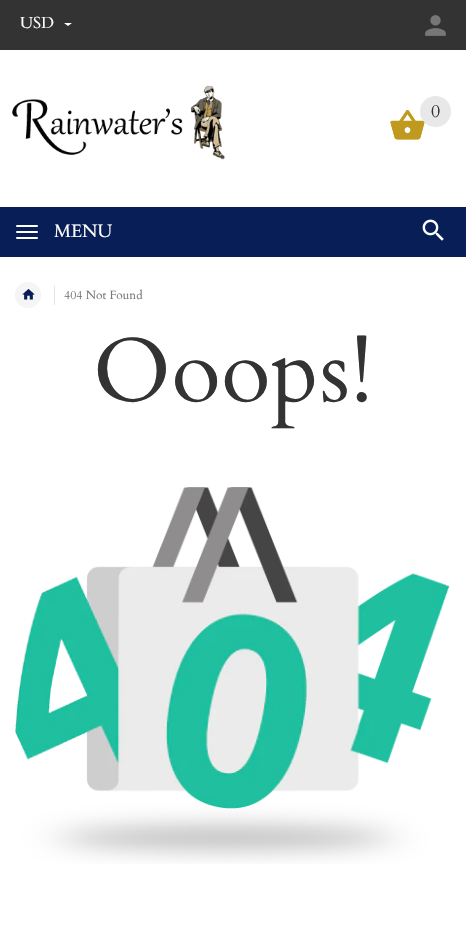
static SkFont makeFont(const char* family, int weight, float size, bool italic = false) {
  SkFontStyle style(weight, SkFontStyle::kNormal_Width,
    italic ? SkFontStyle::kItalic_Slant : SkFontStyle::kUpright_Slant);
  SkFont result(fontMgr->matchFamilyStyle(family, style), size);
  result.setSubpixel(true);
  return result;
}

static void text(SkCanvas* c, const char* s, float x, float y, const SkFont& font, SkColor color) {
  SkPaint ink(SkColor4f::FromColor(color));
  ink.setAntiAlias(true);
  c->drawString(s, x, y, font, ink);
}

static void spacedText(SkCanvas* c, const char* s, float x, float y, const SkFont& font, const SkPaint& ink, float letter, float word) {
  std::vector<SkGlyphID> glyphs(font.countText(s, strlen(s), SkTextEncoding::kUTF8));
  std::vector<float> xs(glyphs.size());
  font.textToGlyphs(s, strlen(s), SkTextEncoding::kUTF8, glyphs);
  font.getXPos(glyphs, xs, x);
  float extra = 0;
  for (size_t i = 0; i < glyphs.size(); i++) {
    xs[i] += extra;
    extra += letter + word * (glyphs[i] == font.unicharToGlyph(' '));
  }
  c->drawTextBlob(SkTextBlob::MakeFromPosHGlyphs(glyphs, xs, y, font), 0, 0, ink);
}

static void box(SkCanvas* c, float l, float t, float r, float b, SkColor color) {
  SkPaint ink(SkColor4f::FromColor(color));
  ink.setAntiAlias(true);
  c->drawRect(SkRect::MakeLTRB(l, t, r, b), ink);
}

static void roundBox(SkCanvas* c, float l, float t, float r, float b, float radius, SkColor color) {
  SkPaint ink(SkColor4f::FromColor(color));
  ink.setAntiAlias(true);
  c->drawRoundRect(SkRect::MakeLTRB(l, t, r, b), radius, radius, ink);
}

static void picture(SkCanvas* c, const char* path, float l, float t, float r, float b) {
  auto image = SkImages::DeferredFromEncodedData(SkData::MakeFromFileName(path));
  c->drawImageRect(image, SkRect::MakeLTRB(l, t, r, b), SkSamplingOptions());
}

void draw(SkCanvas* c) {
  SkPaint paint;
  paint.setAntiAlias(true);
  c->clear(0xffffffff);
  picture(c, "img_01.png", 12, 85, 225, 160);
  box(c, 0, 0, 466, 50, 0xff333333);
  picture(c, "img_02.png", 425, 15, 446, 36);
  picture(c, "img_03.png", 390, 110, 425, 140);
  box(c, 0, 207, 466, 257, 0xff081e56);
  picture(c, "img_04.png", 422, 219, 444, 241);
  SkFont face1 = makeFont("Cardo", 400, 16);
  text(c, "USD", 20, 28, face1, 0xffffffff);
  paint.setColor(0xffffffff);
  c->drawPath(SkPathBuilder().moveTo(64, 23).lineTo(72, 23).lineTo(68, 26).close().detach(), paint);
  picture(c, "img_05.png", 390, 110, 425, 140);
  paint.setColor(0xffe8e8e8);
  c->drawCircle(435.5f, 111.5f, 15.5f, paint);
  SkFont face2 = makeFont("Cardo", 400, 18);
  text(c, "0", 431, 117, face2, 0xff333333);
  roundBox(c, 16, 225, 38, 227, 1, 0xffffffff);
  text(c, "MENU", 54, 237, face2, 0xffffffff);
  roundBox(c, 16, 231, 38, 233, 1, 0xffffffff);
  roundBox(c, 16, 237, 38, 239, 1, 0xffffffff);
  paint.setColor(0xfff5f5f5);
  c->drawCircle(28, 295, 13, paint);
  picture(c, "img_06.png", 22, 289, 35, 300);
  box(c, 54, 286, 55, 305, 0xffe5e5e5);
  SkFont face3 = makeFont("Cardo", 400, 12);
  text(c, "404 Not Found", 64, 299, face3, 0xff777777);
  SkFont face4 = makeFont("Cardo", 400, 90);
  paint.setColor(0xff333333);
  spacedText(c, "Ooops!", 93, 401, face4, paint, 1, 0);
  picture(c, "img_07.png", 15, 487, 450, 864);
}
